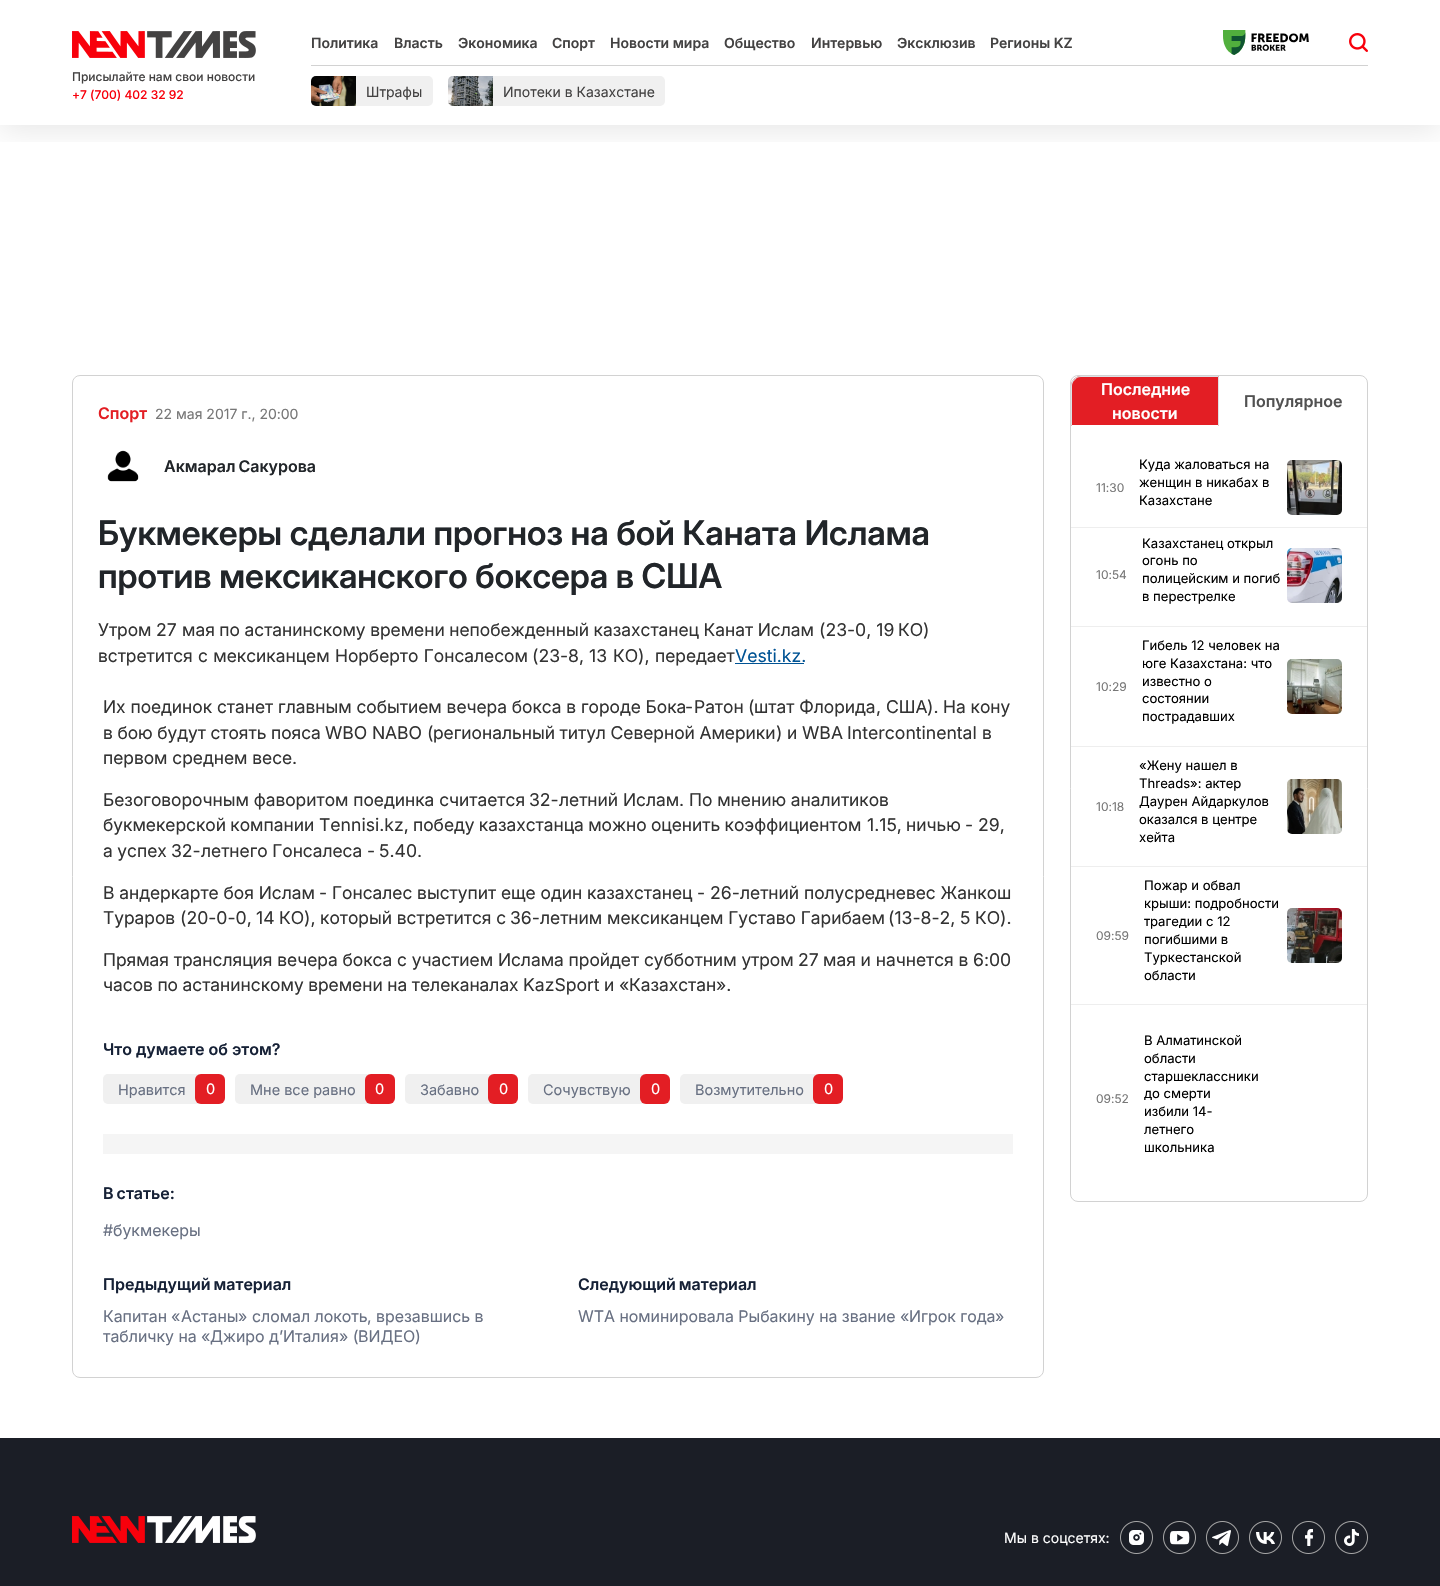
static SkFont makeFont(const char* family, int weight, float size, bool italic = false) {
  SkFontStyle style(weight, SkFontStyle::kNormal_Width,
    italic ? SkFontStyle::kItalic_Slant : SkFontStyle::kUpright_Slant);
  SkFont result(fontMgr->matchFamilyStyle(family, style), size);
  result.setSubpixel(true);
  return result;
}

static void text(SkCanvas* c, const char* s, float x, float y, const SkFont& font, SkColor color) {
  SkPaint ink(SkColor4f::FromColor(color));
  ink.setAntiAlias(true);
  c->drawString(s, x, y, font, ink);
}

static void spacedText(SkCanvas* c, const char* s, float x, float y, const SkFont& font, const SkPaint& ink, float letter, float word) {
  std::vector<SkGlyphID> glyphs(font.countText(s, strlen(s), SkTextEncoding::kUTF8));
  std::vector<float> xs(glyphs.size());
  font.textToGlyphs(s, strlen(s), SkTextEncoding::kUTF8, glyphs);
  font.getXPos(glyphs, xs, x);
  float extra = 0;
  for (size_t i = 0; i < glyphs.size(); i++) {
    xs[i] += extra;
    extra += letter + word * (glyphs[i] == font.unicharToGlyph(' '));
  }
  c->drawTextBlob(SkTextBlob::MakeFromPosHGlyphs(glyphs, xs, y, font), 0, 0, ink);
}

static void box(SkCanvas* c, float l, float t, float r, float b, SkColor color) {
  SkPaint ink(SkColor4f::FromColor(color));
  ink.setAntiAlias(true);
  c->drawRect(SkRect::MakeLTRB(l, t, r, b), ink);
}

static void roundBox(SkCanvas* c, float l, float t, float r, float b, float radius, SkColor color) {
  SkPaint ink(SkColor4f::FromColor(color));
  ink.setAntiAlias(true);
  c->drawRoundRect(SkRect::MakeLTRB(l, t, r, b), radius, radius, ink);
}

static void picture(SkCanvas* c, const char* path, float l, float t, float r, float b) {
  auto image = SkImages::DeferredFromEncodedData(SkData::MakeFromFileName(path));
  c->drawImageRect(image, SkRect::MakeLTRB(l, t, r, b), SkSamplingOptions());
}

void draw(SkCanvas* c) {
  SkPaint paint;
  paint.setAntiAlias(true);
  c->clear(0xffffffff);
  c->save();
  c->clipRect(SkRect::MakeLTRB(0, 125, 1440, 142));
  paint.setColor(0x1a000000);
  paint.setMaskFilter(SkMaskFilter::MakeBlur(kNormal_SkBlurStyle, 15));
  c->drawRect(SkRect::MakeLTRB(0, 4, 1440, 129), paint);
  paint.setMaskFilter(nullptr);
  c->restore();
  picture(c, "img_01.png", 72, 31, 256, 58);
  SkFont face1 = makeFont("Inter", 500, 12);
  text(c, "Присылайте нам свои новости", 72, 81, face1, 0xff434242);
  text(c, "+7 (700) 402 32 92", 72, 99, face1, 0xfff8000b);
  box(c, 311, 65, 1368, 66, 0xffd2d2d2);
  SkFont face2 = makeFont("Inter", 600, 14);
  text(c, "Политика", 311, 48, face2, 0xff434242);
  text(c, "Власть", 394, 48, face2, 0xff434242);
  text(c, "Экономика", 458, 48, face2, 0xff434242);
  text(c, "Спорт", 552, 48, face2, 0xff434242);
  text(c, "Новости мира", 610, 48, face2, 0xff434242);
  text(c, "Общество", 724, 48, face2, 0xff434242);
  text(c, "Интервью", 811, 48, face2, 0xff434242);
  text(c, "Эксклюзив", 897, 48, face2, 0xff434242);
  text(c, "Регионы KZ", 990, 48, face2, 0xff434242);
  picture(c, "img_02.png", 1223, 30, 1309, 55);
  picture(c, "img_03.png", 1349, 33, 1368, 52);
  roundBox(c, 311, 76, 433, 106, 5, 0xfff0f0f0);
  picture(c, "img_04.png", 311, 76, 356, 106);
  SkFont face3 = makeFont("Inter", 400, 14);
  text(c, "Штрафы", 366, 97, face3, 0xff434242);
  roundBox(c, 448, 76, 665, 106, 5, 0xfff0f0f0);
  picture(c, "img_05.png", 448, 76, 493, 106);
  text(c, "Ипотеки в Казахстане", 503, 97, face3, 0xff434242);
  paint.setStyle(SkPaint::kStroke_Style);
  paint.setStrokeWidth(1);
  paint.setColor(0xffd2d2d2);
  c->drawRoundRect(SkRect::MakeLTRB(72.5f, 375.5f, 1043.5f, 1377.5f), 7.5f, 7.5f, paint);
  SkFont face4 = makeFont("Inter", 600, 16);
  text(c, "Спорт", 98, 419, face4, 0xffe31e24);
  text(c, "22 мая 2017 г., 20:00", 155, 419, face3, 0xff777777);
  picture(c, "img_06.png", 107, 450, 139, 482);
  paint.setStyle(SkPaint::kFill_Style);
  paint.setColor(0xff212529);
  spacedText(c, "Акмарал Сакурова", 164, 472, face4, paint, 0, -1);
  SkFont face5 = makeFont("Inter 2", 600, 34);
  text(c, "Букмекеры сделали прогноз на бой Каната Ислама", 98, 545, face5, 0xff212529);
  text(c, "против мексиканского боксера в США", 98, 588, face5, 0xff212529);
  SkFont face6 = makeFont("Inter 2", 400, 17.6f);
  text(c, "Утром", 98, 636, face6, 0xff333333);
  SkFont face7 = makeFont("Inter", 400, 17.6f);
  text(c, "27", 156, 636, face7, 0xff333333);
  paint.setColor(0xff333333);
  spacedText(c, "мая по астанинскому времени непобежденный казахстанец Канат Ислам", 182, 636, face6, paint, 0, -0.25f);
  text(c, "(23-0, 19", 819, 636, face7, 0xff333333);
  text(c, "КО", 898, 636, face6, 0xff333333);
  text(c, ")", 923, 636, face7, 0xff333333);
  spacedText(c, "встретится с мексиканцем Норберто Гонсалесом", 98, 662, face6, paint, 0, 0.5f);
  text(c, "(23-8, 13", 532, 662, face7, 0xff333333);
  text(c, "КО", 613, 662, face6, 0xff333333);
  text(c, "),", 638, 662, face7, 0xff333333);
  text(c, "передает", 655, 662, face6, 0xff333333);
  text(c, "Vesti.kz.", 735, 662, face7, 0xff005394);
  box(c, 735, 663, 804, 664, 0xff005394);
  text(c, "Их поединок станет главным событием вечера бокса в городе Бока", 103, 713, face6, 0xff333333);
  text(c, "-", 685, 713, face7, 0xff333333);
  text(c, "Ратон", 694, 713, face6, 0xff333333);
  text(c, "(", 748, 713, face7, 0xff333333);
  text(c, "штат Флорида", 754, 713, face6, 0xff333333);
  text(c, "США", 886, 713, face6, 0xff333333);
  text(c, ").", 927, 713, face7, 0xff333333);
  text(c, "На кону", 943, 713, face6, 0xff333333);
  text(c, ",", 876, 713, face7, 0xff333333);
  spacedText(c, "в бою будут стоять пояса", 103, 739, face6, paint, 0, -0.25f);
  text(c, "WBO", 325, 739, face7, 0xff333333);
  text(c, "N", 372, 739, face7, 0xff333333);
  text(c, "A", 385, 739, face6, 0xff333333);
  text(c, "BO", 397, 739, face7, 0xff333333);
  text(c, "(", 427, 739, face7, 0xff333333);
  spacedText(c, "региональный титул Северной Америки", 433, 739, face6, paint, 0, -0.25f);
  text(c, ")", 776, 739, face7, 0xff333333);
  text(c, "и", 787, 739, face6, 0xff333333);
  text(c, "WB", 802, 739, face7, 0xff333333);
  text(c, "A", 831, 739, face6, 0xff333333);
  text(c, "Intercontinental", 847, 739, face7, 0xff333333);
  text(c, "в", 982, 739, face6, 0xff333333);
  text(c, "первом среднем весе", 103, 764, face6, 0xff333333);
  text(c, ".", 292, 764, face7, 0xff333333);
  text(c, "Безоговорочным фаворитом поединка считается", 103, 806, face6, 0xff333333);
  text(c, "32-", 529, 806, face7, 0xff333333);
  text(c, "летний Ислам", 559, 806, face6, 0xff333333);
  text(c, ".", 679, 806, face7, 0xff333333);
  text(c, "По мнению аналитиков", 689, 806, face6, 0xff333333);
  spacedText(c, "букмекерской компании", 103, 831, face6, paint, 0, -0.5f);
  text(c, "Tennisi.kz,", 319, 831, face7, 0xff333333);
  spacedText(c, "победу казахстанца можно оценить коэффициентом", 413, 831, face6, paint, 0, -0.5f);
  text(c, "1.15,", 867, 831, face7, 0xff333333);
  text(c, "ничью", 906, 831, face6, 0xff333333);
  text(c, "-", 965, 831, face7, 0xff333333);
  text(c, "29,", 978, 831, face7, 0xff333333);
  spacedText(c, "а успех", 103, 857, face6, paint, 0, -0.25f);
  text(c, "32-", 171, 857, face7, 0xff333333);
  spacedText(c, "летнего Гонсалеса", 201, 857, face6, paint, 0, -0.25f);
  text(c, "-", 367, 857, face7, 0xff333333);
  text(c, "5.40.", 379, 857, face7, 0xff333333);
  text(c, "В андеркарте боя Ислам", 103, 899, face6, 0xff333333);
  text(c, "-", 319, 899, face7, 0xff333333);
  text(c, "Гонсалес выступит еще один казахстанец", 332, 899, face6, 0xff333333);
  text(c, "- 26-", 697, 899, face7, 0xff333333);
  text(c, "летний полусредневес Жанкош", 740, 899, face6, 0xff333333);
  text(c, "Тураров", 103, 924, face6, 0xff333333);
  text(c, "(20-0-0,", 180, 924, face7, 0xff333333);
  text(c, "14", 256, 924, face7, 0xff333333);
  text(c, "КО", 279, 924, face6, 0xff333333);
  text(c, "),", 304, 924, face7, 0xff333333);
  text(c, "который встретится с", 320, 924, face6, 0xff333333);
  text(c, "36-", 510, 924, face7, 0xff333333);
  text(c, "летним мексиканцем Густаво Гарибаем", 540, 924, face6, 0xff333333);
  text(c, "(13-8-2,", 888, 924, face7, 0xff333333);
  text(c, "5", 960, 924, face7, 0xff333333);
  text(c, "КО", 975, 924, face6, 0xff333333);
  text(c, ").", 1000, 924, face7, 0xff333333);
  text(c, "Прямая трансляция вечера бокса с участием Ислама пройдет субботним утром", 103, 966, face6, 0xff333333);
  text(c, "27", 798, 966, face7, 0xff333333);
  text(c, "мая и начнется в", 823, 966, face6, 0xff333333);
  text(c, "6:00", 973, 966, face7, 0xff333333);
  spacedText(c, "часов по астанинскому времени на телеканалах", 103, 991, face6, paint, 0, -0.25f);
  text(c, "KazSport", 523, 991, face7, 0xff333333);
  text(c, "и", 604, 991, face6, 0xff333333);
  text(c, "«", 619, 991, face7, 0xff333333);
  text(c, "Казахстан", 629, 991, face6, 0xff333333);
  text(c, "».", 716, 991, face7, 0xff333333);
  text(c, "Что думаете об этом?", 103, 1055, face4, 0xff162136);
  roundBox(c, 103, 1074, 225, 1104, 5, 0xfff0f0f0);
  SkFont face8 = makeFont("Inter", 400, 14.5f);
  text(c, "Нравится", 118, 1095, face8, 0xff687082);
  roundBox(c, 195, 1074, 225, 1104, 6, 0xffe31e24);
  text(c, "0", 206, 1094, face8, 0xffffffff);
  roundBox(c, 235, 1074, 395, 1104, 5, 0xfff0f0f0);
  text(c, "Мне все равно", 250, 1095, face8, 0xff687082);
  roundBox(c, 365, 1074, 395, 1104, 6, 0xffe31e24);
  text(c, "0", 375, 1094, face8, 0xffffffff);
  roundBox(c, 405, 1074, 518, 1104, 5, 0xfff0f0f0);
  text(c, "Забавно", 420, 1095, face8, 0xff687082);
  roundBox(c, 488, 1074, 518, 1104, 6, 0xffe31e24);
  text(c, "0", 499, 1094, face8, 0xffffffff);
  roundBox(c, 528, 1074, 670, 1104, 5, 0xfff0f0f0);
  text(c, "Сочувствую", 543, 1095, face8, 0xff687082);
  roundBox(c, 640, 1074, 670, 1104, 6, 0xffe31e24);
  text(c, "0", 651, 1094, face8, 0xffffffff);
  roundBox(c, 680, 1074, 843, 1104, 5, 0xfff0f0f0);
  text(c, "Возмутительно", 695, 1095, face8, 0xff687082);
  roundBox(c, 813, 1074, 843, 1104, 6, 0xffe31e24);
  text(c, "0", 824, 1094, face8, 0xffffffff);
  box(c, 103, 1134, 1013, 1154, 0xfff5f5f5);
  paint.setColor(0xff162136);
  spacedText(c, "В статье:", 103, 1199, face4, paint, 0, -1);
  SkFont face9 = makeFont("Inter", 400, 16);
  text(c, "#", 103, 1236, face9, 0xff687082);
  SkFont face10 = makeFont("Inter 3", 400, 16);
  text(c, "букмекеры", 113, 1236, face10, 0xff687082);
  spacedText(c, "Предыдущий материал", 103, 1290, face4, paint, 0, -1);
  text(c, "Капитан", 103, 1322, face10, 0xff687082);
  text(c, "«", 171, 1322, face9, 0xff687082);
  text(c, "Астаны", 181, 1322, face10, 0xff687082);
  text(c, "»", 238, 1322, face9, 0xff687082);
  text(c, "сломал локоть", 252, 1322, face10, 0xff687082);
  text(c, ",", 367, 1322, face9, 0xff687082);
  text(c, "врезавшись в", 376, 1322, face10, 0xff687082);
  text(c, "табличку на", 103, 1342, face10, 0xff687082);
  text(c, "«", 201, 1342, face9, 0xff687082);
  text(c, "Джиро д", 210, 1342, face10, 0xff687082);
  text(c, "’", 279, 1342, face9, 0xff687082);
  text(c, "Италия", 283, 1342, face10, 0xff687082);
  text(c, "» (", 339, 1342, face9, 0xff687082);
  text(c, "ВИДЕО", 358, 1342, face10, 0xff687082);
  text(c, ")", 415, 1342, face9, 0xff687082);
  spacedText(c, "Следующий материал", 578, 1290, face4, paint, 0, -1);
  text(c, "WT", 578, 1322, face9, 0xff687082);
  text(c, "A номинировала Рыбакину на звание", 604, 1322, face10, 0xff687082);
  text(c, "«", 900, 1322, face9, 0xff687082);
  text(c, "Игрок года", 909, 1322, face10, 0xff687082);
  text(c, "»", 995, 1322, face9, 0xff687082);
  paint.setStyle(SkPaint::kStroke_Style);
  paint.setColor(0xffd2d2d2);
  c->drawRoundRect(SkRect::MakeLTRB(1070.5f, 375.5f, 1367.5f, 1201.5f), 7.5f, 7.5f, paint);
  paint.setStyle(SkPaint::kFill_Style);
  paint.setColor(0xffe31e24);
  c->drawPath(SkPathBuilder().moveTo(1081, 376).lineTo(1219, 376).lineTo(1219, 426).lineTo(1071, 426).lineTo(1071, 386).cubicTo(1071, 380.5f, 1075.5f, 376, 1081, 376).close().detach(), paint);
  paint.setColor(0xffdee2e6);
  c->drawPath(SkPathBuilder().moveTo(1081, 376).cubicTo(1078, 376, 1076, 377, 1074, 379).lineTo(1075, 380).cubicTo(1076, 378, 1078, 377, 1081, 377).lineTo(1218, 377).lineTo(1219, 376).close().detach(), paint);
  c->drawPath(SkPathBuilder().moveTo(1219, 376).lineTo(1218, 377).lineTo(1218, 425).lineTo(1219, 426).close().detach(), paint);
  paint.setColor(0xffffffff);
  c->drawPath(SkPathBuilder().moveTo(1219, 426).lineTo(1218, 425).lineTo(1072, 425).lineTo(1071, 426).close().detach(), paint);
  paint.setColor(0xffdee2e6);
  c->drawPath(SkPathBuilder().moveTo(1071, 426).lineTo(1072, 425).lineTo(1072, 386).cubicTo(1072, 384, 1073, 381, 1075, 380).lineTo(1074, 379).cubicTo(1072, 380, 1071, 383, 1071, 386).close().detach(), paint);
  text(c, "Последние", 1101, 395, face4, 0xffffffff);
  text(c, "новости", 1112, 419, face4, 0xffffffff);
  text(c, "Популярное", 1244, 407, face4, 0xff515151);
  box(c, 1071, 527, 1367, 528, 0xffeeeeee);
  SkFont face11 = makeFont("Inter", 400, 12);
  text(c, "11:30", 1096, 492, face11, 0xff777777);
  SkFont face12 = makeFont("Inter", 400, 13.1f);
  text(c, "Куда жаловаться на", 1139, 469, face12, 0xff000000);
  text(c, "женщин в никабах в", 1139, 487, face12, 0xff000000);
  text(c, "Казахстане", 1139, 505, face12, 0xff000000);
  picture(c, "img_07.png", 1287, 460, 1342, 515);
  box(c, 1071, 626, 1367, 627, 0xffeeeeee);
  text(c, "10:54", 1096, 579, face11, 0xff777777);
  text(c, "Казахстанец открыл", 1142, 548, face12, 0xff000000);
  text(c, "огонь по", 1142, 565, face12, 0xff000000);
  text(c, "полицейским и погиб", 1142, 583, face12, 0xff000000);
  text(c, "в перестрелке", 1142, 601, face12, 0xff000000);
  picture(c, "img_08.png", 1287, 548, 1342, 603);
  box(c, 1071, 746, 1367, 747, 0xffeeeeee);
  text(c, "10:29", 1096, 691, face11, 0xff777777);
  text(c, "Гибель 12 человек на", 1142, 650, face12, 0xff000000);
  text(c, "юге Казахстана: что", 1142, 668, face12, 0xff000000);
  text(c, "известно о", 1142, 686, face12, 0xff000000);
  text(c, "состоянии", 1142, 703, face12, 0xff000000);
  text(c, "пострадавших", 1142, 721, face12, 0xff000000);
  picture(c, "img_09.png", 1287, 659, 1342, 714);
  box(c, 1071, 866, 1367, 867, 0xffeeeeee);
  text(c, "10:18", 1096, 811, face11, 0xff777777);
  text(c, "«Жену нашел в", 1139, 770, face12, 0xff000000);
  text(c, "Threads»: актер", 1139, 788, face12, 0xff000000);
  text(c, "Даурен Айдаркулов", 1139, 806, face12, 0xff000000);
  text(c, "оказался в центре", 1139, 824, face12, 0xff000000);
  text(c, "хейта", 1139, 842, face12, 0xff000000);
  picture(c, "img_10.png", 1287, 779, 1342, 834);
  box(c, 1071, 1004, 1367, 1005, 0xffeeeeee);
  text(c, "09:59", 1096, 940, face11, 0xff777777);
  text(c, "Пожар и обвал", 1144, 890, face12, 0xff000000);
  text(c, "крыши: подробности", 1144, 908, face12, 0xff000000);
  text(c, "трагедии с 12", 1144, 926, face12, 0xff000000);
  text(c, "погибшими в", 1144, 944, face12, 0xff000000);
  text(c, "Туркестанской", 1144, 962, face12, 0xff000000);
  text(c, "области", 1144, 980, face12, 0xff000000);
  picture(c, "img_11.png", 1287, 908, 1342, 963);
  text(c, "09:52", 1096, 1103, face11, 0xff777777);
  text(c, "В Алматинской", 1144, 1045, face12, 0xff000000);
  text(c, "области", 1144, 1063, face12, 0xff000000);
  text(c, "старшеклассники", 1144, 1081, face12, 0xff000000);
  text(c, "до смерти", 1144, 1098, face12, 0xff000000);
  text(c, "избили 14-", 1144, 1116, face12, 0xff000000);
  text(c, "летнего", 1144, 1134, face12, 0xff000000);
  text(c, "школьника", 1144, 1152, face12, 0xff000000);
  box(c, 0, 1438, 1440, 1586, 0xff1b1e26);
  picture(c, "img_12.png", 72, 1516, 256, 1543);
  text(c, "Мы в соцсетях:", 1004, 1543, face3, 0xffffffff);
  picture(c, "img_13.png", 1120, 1521, 1153, 1554);
  picture(c, "img_14.png", 1163, 1521, 1196, 1554);
  picture(c, "img_15.png", 1206, 1521, 1239, 1554);
  picture(c, "img_16.png", 1249, 1521, 1282, 1554);
  picture(c, "img_17.png", 1292, 1521, 1325, 1554);
  picture(c, "img_18.png", 1335, 1521, 1368, 1554);
}
